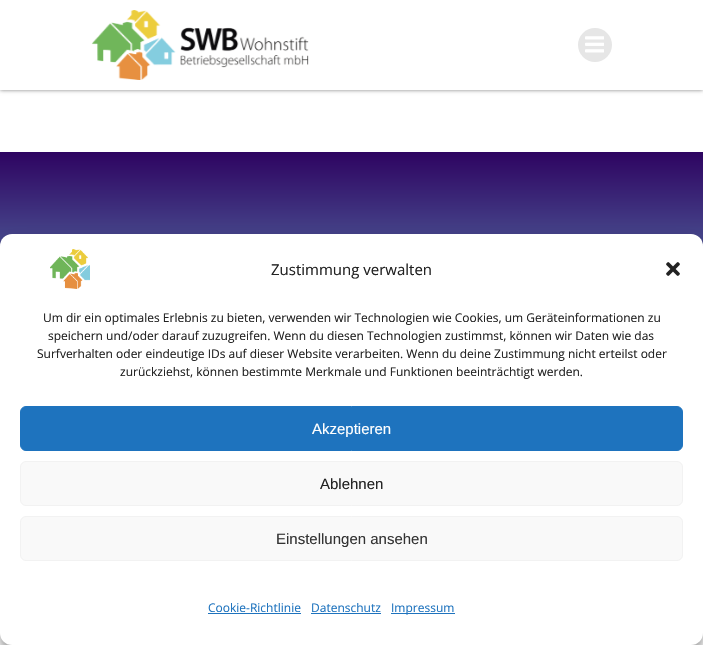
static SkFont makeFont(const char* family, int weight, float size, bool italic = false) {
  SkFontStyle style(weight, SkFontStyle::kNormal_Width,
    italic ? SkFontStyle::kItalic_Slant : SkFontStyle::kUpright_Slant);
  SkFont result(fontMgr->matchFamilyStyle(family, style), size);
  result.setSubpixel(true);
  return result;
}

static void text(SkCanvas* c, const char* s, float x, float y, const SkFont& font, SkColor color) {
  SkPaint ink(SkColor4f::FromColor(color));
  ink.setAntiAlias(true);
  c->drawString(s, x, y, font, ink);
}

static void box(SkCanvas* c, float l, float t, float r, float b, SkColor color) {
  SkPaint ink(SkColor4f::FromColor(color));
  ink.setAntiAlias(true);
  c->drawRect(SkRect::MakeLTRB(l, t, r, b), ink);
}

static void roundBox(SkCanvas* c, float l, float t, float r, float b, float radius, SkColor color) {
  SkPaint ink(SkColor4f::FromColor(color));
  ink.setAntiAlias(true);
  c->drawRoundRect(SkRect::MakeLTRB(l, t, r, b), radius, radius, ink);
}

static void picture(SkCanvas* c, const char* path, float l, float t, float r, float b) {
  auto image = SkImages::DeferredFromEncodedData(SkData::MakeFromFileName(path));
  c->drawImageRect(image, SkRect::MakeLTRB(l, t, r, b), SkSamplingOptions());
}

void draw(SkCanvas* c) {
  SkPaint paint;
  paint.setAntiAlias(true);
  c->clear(0xffffffff);
  paint.setColor(0x80000000);
  paint.setMaskFilter(SkMaskFilter::MakeBlur(kNormal_SkBlurStyle, 2));
  c->drawRect(SkRect::MakeLTRB(0, 0, 703, 90), paint);
  paint.setMaskFilter(nullptr);
  box(c, 0, 0, 703, 90, 0xffffffff);
  picture(c, "img_01.png", 91, 10, 309, 80);
  paint.setColor(0xffe6e6e6);
  c->drawCircle(595, 45, 17, paint);
  picture(c, "img_02.png", 585, 36, 604, 53);
  {
    const SkColor colors[] = {0xff78cfe3, 0xff2e0461};
    const float stops[] = {0, 1};
    const SkPoint ends[] = {{352, 422}, {352, 152}};
    paint.setShader(SkGradientShader::MakeLinear(ends, colors, stops, 2, SkTileMode::kClamp));
    paint.setAlpha(255);
  }
  c->drawRect(SkRect::MakeLTRB(0, 152, 703, 246), paint);
  paint.setShader(nullptr);
  paint.setColor(0x3b000000);
  paint.setMaskFilter(SkMaskFilter::MakeBlur(kNormal_SkBlurStyle, 3));
  c->drawRoundRect(SkRect::MakeLTRB(0, 240, 703, 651), 12, 12, paint);
  paint.setMaskFilter(nullptr);
  paint.setColor(0x30000000);
  paint.setMaskFilter(SkMaskFilter::MakeBlur(kNormal_SkBlurStyle, 10));
  c->drawRoundRect(SkRect::MakeLTRB(0, 244, 703, 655), 12, 12, paint);
  paint.setMaskFilter(nullptr);
  roundBox(c, 0, 234, 703, 645, 12, 0xffffffff);
  picture(c, "img_03.png", 50, 249, 90, 289);
  SkFont face1 = makeFont("Open Sans", 400, 15);
  text(c, "Zustimmung verwalten", 271, 275, face1, 0xff222222);
  picture(c, "img_04.png", 666, 262, 680, 276);
  SkFont face2 = makeFont("Open Sans", 400, 12);
  text(c, "Um dir ein optimales Erlebnis zu bieten, verwenden wir Technologien wie Cookies, um Geräteinformationen zu", 43, 322, face2, 0xff222222);
  text(c, "speichern und/oder darauf zuzugreifen. Wenn du diesen Technologien zustimmst, können wir Daten wie das", 48, 340, face2, 0xff222222);
  text(c, "Surfverhalten oder eindeutige IDs auf dieser Website verarbeiten. Wenn du deine Zustimmung nicht erteilst oder", 37, 358, face2, 0xff222222);
  text(c, "zurückziehst, können bestimmte Merkmale und Funktionen beeinträchtigt werden.", 120, 376, face2, 0xff222222);
  paint.setColor(0xff1e73be);
  c->drawRoundRect(SkRect::MakeLTRB(20.5f, 406.5f, 682.5f, 450.5f), 5.5f, 5.5f, paint);
  paint.setStyle(SkPaint::kStroke_Style);
  paint.setStrokeWidth(1);
  c->drawRoundRect(SkRect::MakeLTRB(20.5f, 406.5f, 682.5f, 450.5f), 5.5f, 5.5f, paint);
  SkFont face3 = makeFont("Liberation Sans", 400, 15);
  text(c, "Akzeptieren", 312, 434, face3, 0xffffffff);
  paint.setStyle(SkPaint::kFill_Style);
  paint.setColor(0xfff9f9f9);
  c->drawRoundRect(SkRect::MakeLTRB(20.5f, 461.5f, 682.5f, 505.5f), 5.5f, 5.5f, paint);
  paint.setStyle(SkPaint::kStroke_Style);
  paint.setColor(0xfff2f2f2);
  c->drawRoundRect(SkRect::MakeLTRB(20.5f, 461.5f, 682.5f, 505.5f), 5.5f, 5.5f, paint);
  text(c, "Ablehnen", 320, 489, face3, 0xff222222);
  paint.setStyle(SkPaint::kFill_Style);
  paint.setColor(0xfff9f9f9);
  c->drawRoundRect(SkRect::MakeLTRB(20.5f, 516.5f, 682.5f, 560.5f), 5.5f, 5.5f, paint);
  paint.setStyle(SkPaint::kStroke_Style);
  paint.setColor(0xfff2f2f2);
  c->drawRoundRect(SkRect::MakeLTRB(20.5f, 516.5f, 682.5f, 560.5f), 5.5f, 5.5f, paint);
  text(c, "Einstellungen ansehen", 276, 544, face3, 0xff333333);
  text(c, "Cookie-Richtlinie", 208, 612, face2, 0xff1e73be);
  box(c, 208, 613, 301, 614, 0xff1e73be);
  text(c, "Datenschutz", 311, 612, face2, 0xff1e73be);
  box(c, 311, 613, 381, 614, 0xff1e73be);
  box(c, 391, 613, 455, 614, 0xff1e73be);
  text(c, "Impressum", 391, 612, face2, 0xff1e73be);
}
